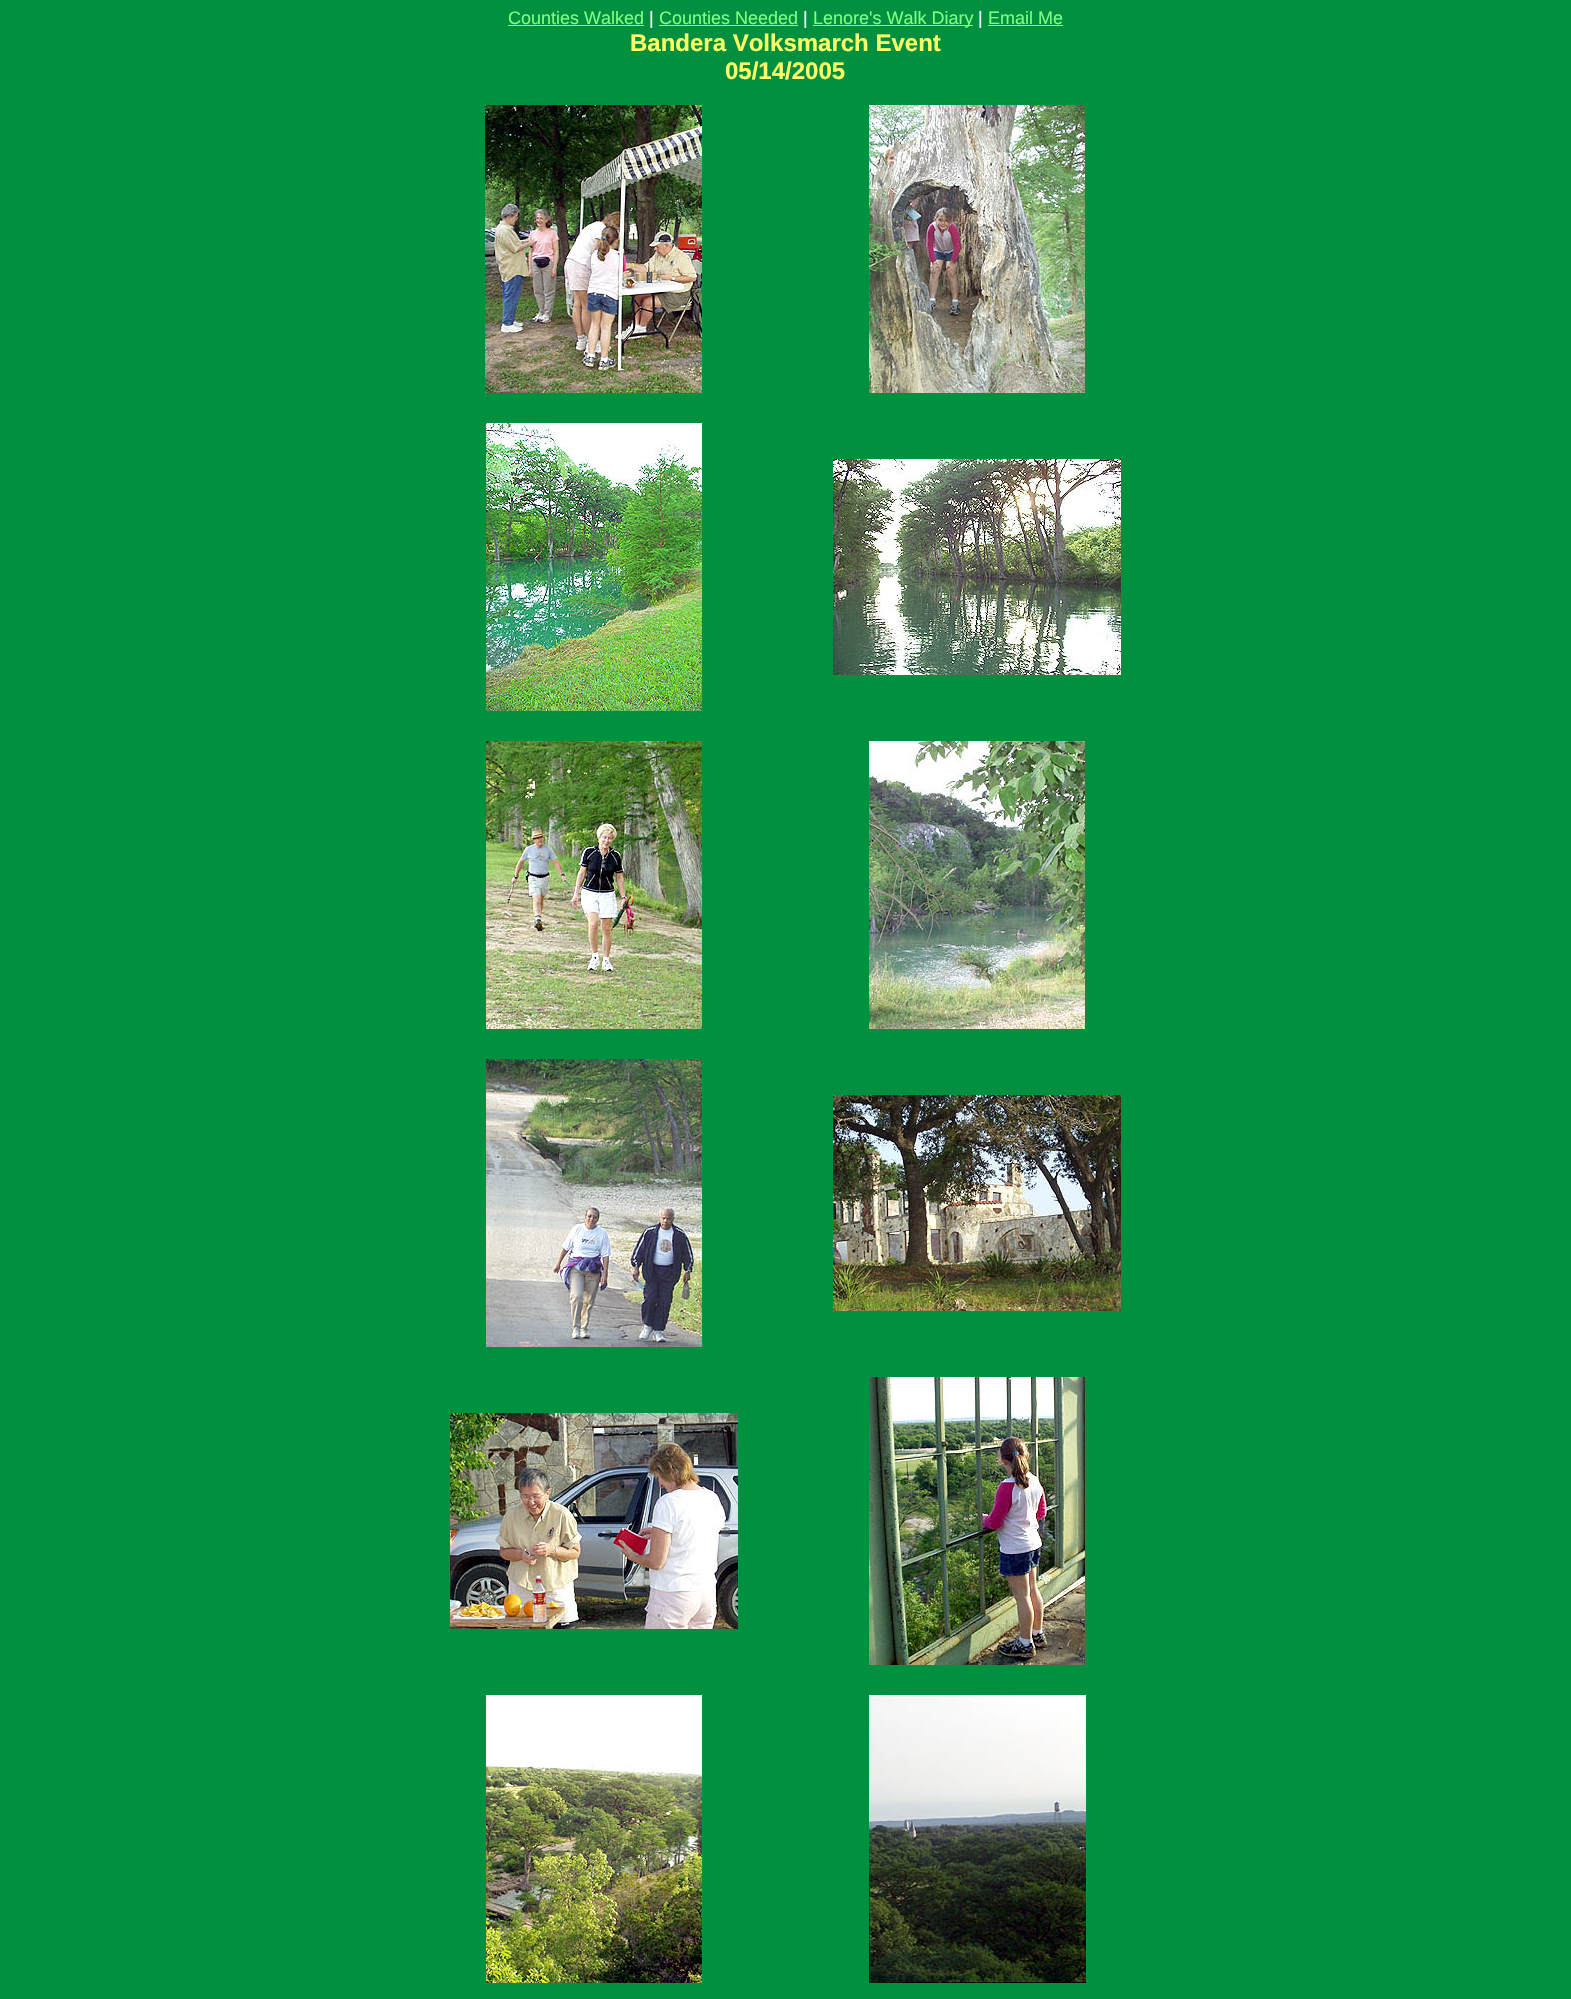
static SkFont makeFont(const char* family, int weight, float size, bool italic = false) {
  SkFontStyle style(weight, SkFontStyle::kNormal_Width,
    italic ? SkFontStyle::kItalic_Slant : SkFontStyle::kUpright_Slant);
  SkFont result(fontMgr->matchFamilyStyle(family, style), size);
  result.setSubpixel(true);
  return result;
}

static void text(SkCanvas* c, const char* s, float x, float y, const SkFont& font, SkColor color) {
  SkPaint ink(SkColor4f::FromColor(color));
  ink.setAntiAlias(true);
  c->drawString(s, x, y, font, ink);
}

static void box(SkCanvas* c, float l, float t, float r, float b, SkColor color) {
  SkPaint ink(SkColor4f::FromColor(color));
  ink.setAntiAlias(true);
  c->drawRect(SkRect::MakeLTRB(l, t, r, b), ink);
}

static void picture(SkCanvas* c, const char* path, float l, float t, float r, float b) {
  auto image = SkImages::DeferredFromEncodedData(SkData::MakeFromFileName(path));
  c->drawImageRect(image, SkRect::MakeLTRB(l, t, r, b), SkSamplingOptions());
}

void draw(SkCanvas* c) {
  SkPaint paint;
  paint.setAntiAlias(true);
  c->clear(0xff009040);
  SkFont face1 = makeFont("Liberation Sans", 400, 18);
  text(c, "Counties Walked", 508, 24, face1, 0xff80ff80);
  box(c, 508, 25, 644, 26, 0xff80ff80);
  text(c, "|", 649, 24, face1, 0xffffffff);
  text(c, "Counties Needed", 659, 24, face1, 0xff80ff80);
  box(c, 659, 25, 798, 26, 0xff80ff80);
  text(c, "|", 803, 24, face1, 0xffffffff);
  box(c, 813, 25, 973, 26, 0xff80ff80);
  text(c, "Lenore's Walk Diary", 813, 24, face1, 0xff80ff80);
  text(c, "|", 978, 24, face1, 0xffffffff);
  text(c, "Email Me", 988, 24, face1, 0xff80ff80);
  box(c, 988, 25, 1063, 26, 0xff80ff80);
  SkFont face2 = makeFont("Liberation Sans", 700, 24);
  text(c, "Bandera Volksmarch Event", 630, 51, face2, 0xffffff66);
  text(c, "05/14/2005", 725, 79, face2, 0xffffff66);
  picture(c, "img_01.png", 485, 105, 702, 393);
  picture(c, "img_02.png", 869, 105, 1085, 393);
  picture(c, "img_03.png", 486, 423, 702, 711);
  picture(c, "img_04.png", 833, 459, 1121, 675);
  picture(c, "img_05.png", 486, 741, 702, 1029);
  picture(c, "img_06.png", 869, 741, 1085, 1029);
  picture(c, "img_07.png", 486, 1059, 702, 1347);
  picture(c, "img_08.png", 833, 1095, 1121, 1311);
  picture(c, "img_09.png", 450, 1413, 738, 1629);
  picture(c, "img_10.png", 869, 1377, 1085, 1665);
  picture(c, "img_11.png", 486, 1695, 702, 1983);
  picture(c, "img_12.png", 869, 1695, 1086, 1983);
}
